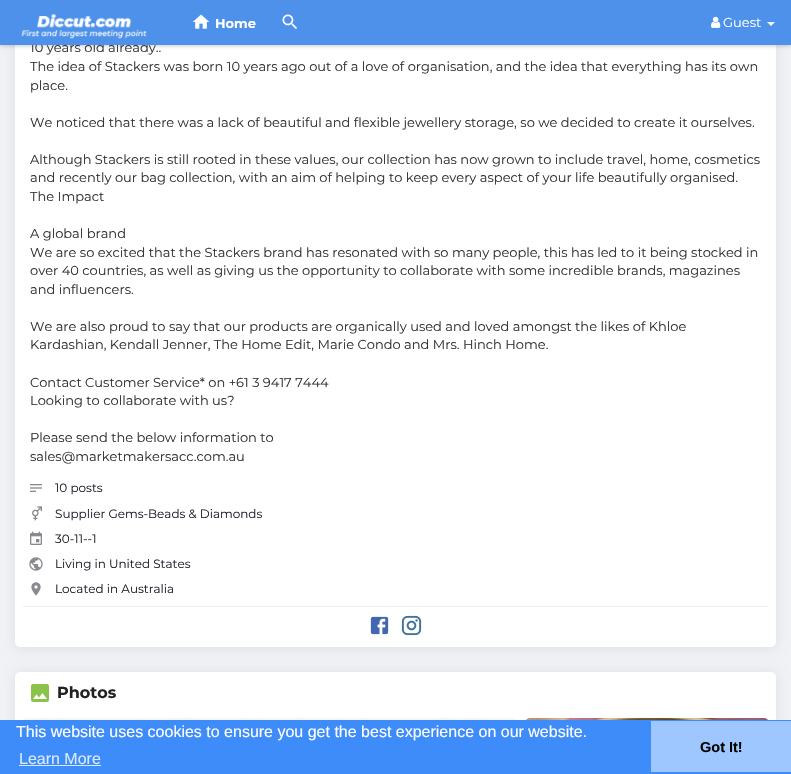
static SkFont makeFont(const char* family, int weight, float size, bool italic = false) {
  SkFontStyle style(weight, SkFontStyle::kNormal_Width,
    italic ? SkFontStyle::kItalic_Slant : SkFontStyle::kUpright_Slant);
  SkFont result(fontMgr->matchFamilyStyle(family, style), size);
  result.setSubpixel(true);
  return result;
}

static void text(SkCanvas* c, const char* s, float x, float y, const SkFont& font, SkColor color) {
  SkPaint ink(SkColor4f::FromColor(color));
  ink.setAntiAlias(true);
  c->drawString(s, x, y, font, ink);
}

static void box(SkCanvas* c, float l, float t, float r, float b, SkColor color) {
  SkPaint ink(SkColor4f::FromColor(color));
  ink.setAntiAlias(true);
  c->drawRect(SkRect::MakeLTRB(l, t, r, b), ink);
}

static void roundBox(SkCanvas* c, float l, float t, float r, float b, float radius, SkColor color) {
  SkPaint ink(SkColor4f::FromColor(color));
  ink.setAntiAlias(true);
  c->drawRoundRect(SkRect::MakeLTRB(l, t, r, b), radius, radius, ink);
}

static void picture(SkCanvas* c, const char* path, float l, float t, float r, float b) {
  auto image = SkImages::DeferredFromEncodedData(SkData::MakeFromFileName(path));
  c->drawImageRect(image, SkRect::MakeLTRB(l, t, r, b), SkSamplingOptions());
}

void draw(SkCanvas* c) {
  SkPaint paint;
  paint.setAntiAlias(true);
  c->clear(0xfff0f2f5);
  paint.setColor(0x14000000);
  paint.setMaskFilter(SkMaskFilter::MakeBlur(kNormal_SkBlurStyle, 6.5f));
  c->drawRoundRect(SkRect::MakeLTRB(15, -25, 776, 648), 5, 5, paint);
  paint.setMaskFilter(nullptr);
  roundBox(c, 15, -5, 776, 647, 5, 0xffffffff);
  paint.setColor(0x33000000);
  paint.setMaskFilter(SkMaskFilter::MakeBlur(kNormal_SkBlurStyle, 2));
  c->drawRect(SkRect::MakeLTRB(0, 1, 791, 46), paint);
  paint.setMaskFilter(nullptr);
  SkFont face1 = makeFont("Montserrat", 400, 13);
  text(c, "10 years old already..", 30, 52, face1, 0xff333333);
  box(c, 0, 0, 791, 45, 0xff4d91ea);
  picture(c, "img_01.png", 21, 14, 147, 39);
  picture(c, "img_02.png", 192, 14, 210, 29);
  SkFont face2 = makeFont("Montserrat", 700, 13);
  text(c, "Home", 215, 28, face2, 0xffffffff);
  picture(c, "img_03.png", 282, 14, 297, 29);
  picture(c, "img_04.png", 711, 16, 721, 28);
  text(c, "Guest", 723, 27, face1, 0xffffffff);
  paint.setColor(0xffffffff);
  c->drawPath(SkPathBuilder().moveTo(767, 22).lineTo(775, 22).lineTo(771, 26).close().detach(), paint);
  text(c, "The idea of Stackers was born 10 years ago out of a love of organisation, and the idea that everything has its own", 30, 71, face1, 0xff333333);
  text(c, "place.", 30, 90, face1, 0xff333333);
  text(c, "We noticed that there was a lack of beautiful and flexible jewellery storage, so we decided to create it ourselves.", 30, 127, face1, 0xff333333);
  text(c, "Although Stackers is still rooted in these values, our collection has now grown to include travel, home, cosmetics", 30, 164, face1, 0xff333333);
  text(c, "and recently our bag collection, with an aim of helping to keep every aspect of your life beautifully organised.", 30, 182, face1, 0xff333333);
  text(c, "The Impact", 30, 201, face1, 0xff333333);
  text(c, "A global brand", 30, 238, face1, 0xff333333);
  text(c, "We are so excited that the Stackers brand has resonated with so many people, this has led to it being stocked in", 30, 257, face1, 0xff333333);
  text(c, "over 40 countries, as well as giving us the opportunity to collaborate with some incredible brands, magazines", 30, 275, face1, 0xff333333);
  text(c, "and influencers.", 30, 294, face1, 0xff333333);
  text(c, "We are also proud to say that our products are organically used and loved amongst the likes of Khloe", 30, 331, face1, 0xff333333);
  text(c, "Kardashian, Kendall Jenner, The Home Edit, Marie Condo and Mrs. Hinch Home.", 30, 349, face1, 0xff333333);
  text(c, "Contact Customer Service* on +61 3 9417 7444", 30, 387, face1, 0xff333333);
  text(c, "Looking to collaborate with us?", 30, 405, face1, 0xff333333);
  text(c, "Please send the below information to", 30, 442, face1, 0xff333333);
  text(c, "sales@marketmakersacc.com.au", 30, 461, face1, 0xff333333);
  picture(c, "img_05.png", 30, 484, 42, 492);
  SkFont face3 = makeFont("Montserrat", 400, 12);
  text(c, "10 posts", 55, 492, face3, 0xff1d2129);
  picture(c, "img_06.png", 32, 506, 42, 521);
  text(c, "Supplier Gems-Beads & Diamonds", 55, 518, face3, 0xff1d2129);
  picture(c, "img_07.png", 30, 531, 42, 545);
  text(c, "30-11--1", 55, 543, face3, 0xff1d2129);
  picture(c, "img_08.png", 29, 557, 43, 571);
  text(c, "Living in United States", 55, 568, face3, 0xff1d2129);
  picture(c, "img_09.png", 31, 582, 41, 596);
  text(c, "Located in Australia", 55, 593, face3, 0xff1d2129);
  box(c, 23, 606, 768, 607, 0xffefefef);
  picture(c, "img_10.png", 370, 616, 389, 635);
  picture(c, "img_11.png", 401, 615, 422, 636);
  paint.setColor(0x14000000);
  paint.setMaskFilter(SkMaskFilter::MakeBlur(kNormal_SkBlurStyle, 6.5f));
  c->drawRoundRect(SkRect::MakeLTRB(15, 673, 776, 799), 5, 5, paint);
  paint.setMaskFilter(nullptr);
  roundBox(c, 15, 672, 776, 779, 5, 0xffffffff);
  picture(c, "img_12.png", 31, 684, 49, 702);
  SkFont face4 = makeFont("Montserrat", 700, 16);
  text(c, "Photos", 57, 698, face4, 0xff222222);
  picture(c, "img_13.png", 23, 718, 516, 720);
  picture(c, "img_14.png", 526, 718, 768, 720);
  box(c, 0, 720, 791, 774, 0xff3d8cfa);
  SkFont face5 = makeFont("Liberation Sans", 400, 16);
  text(c, "This website uses cookies to ensure you get the best experience on our website.", 16, 737, face5, 0xffffffff);
  text(c, "Learn More", 19, 764, face5, 0xffd8e8fe);
  box(c, 19, 765, 101, 766, 0xffd8e8fe);
  box(c, 651, 721, 791, 772, 0xff9fc7ff);
  SkFont face6 = makeFont("Liberation Sans", 700, 14.5f);
  text(c, "Got It!", 700, 752, face6, 0xff000000);
}
